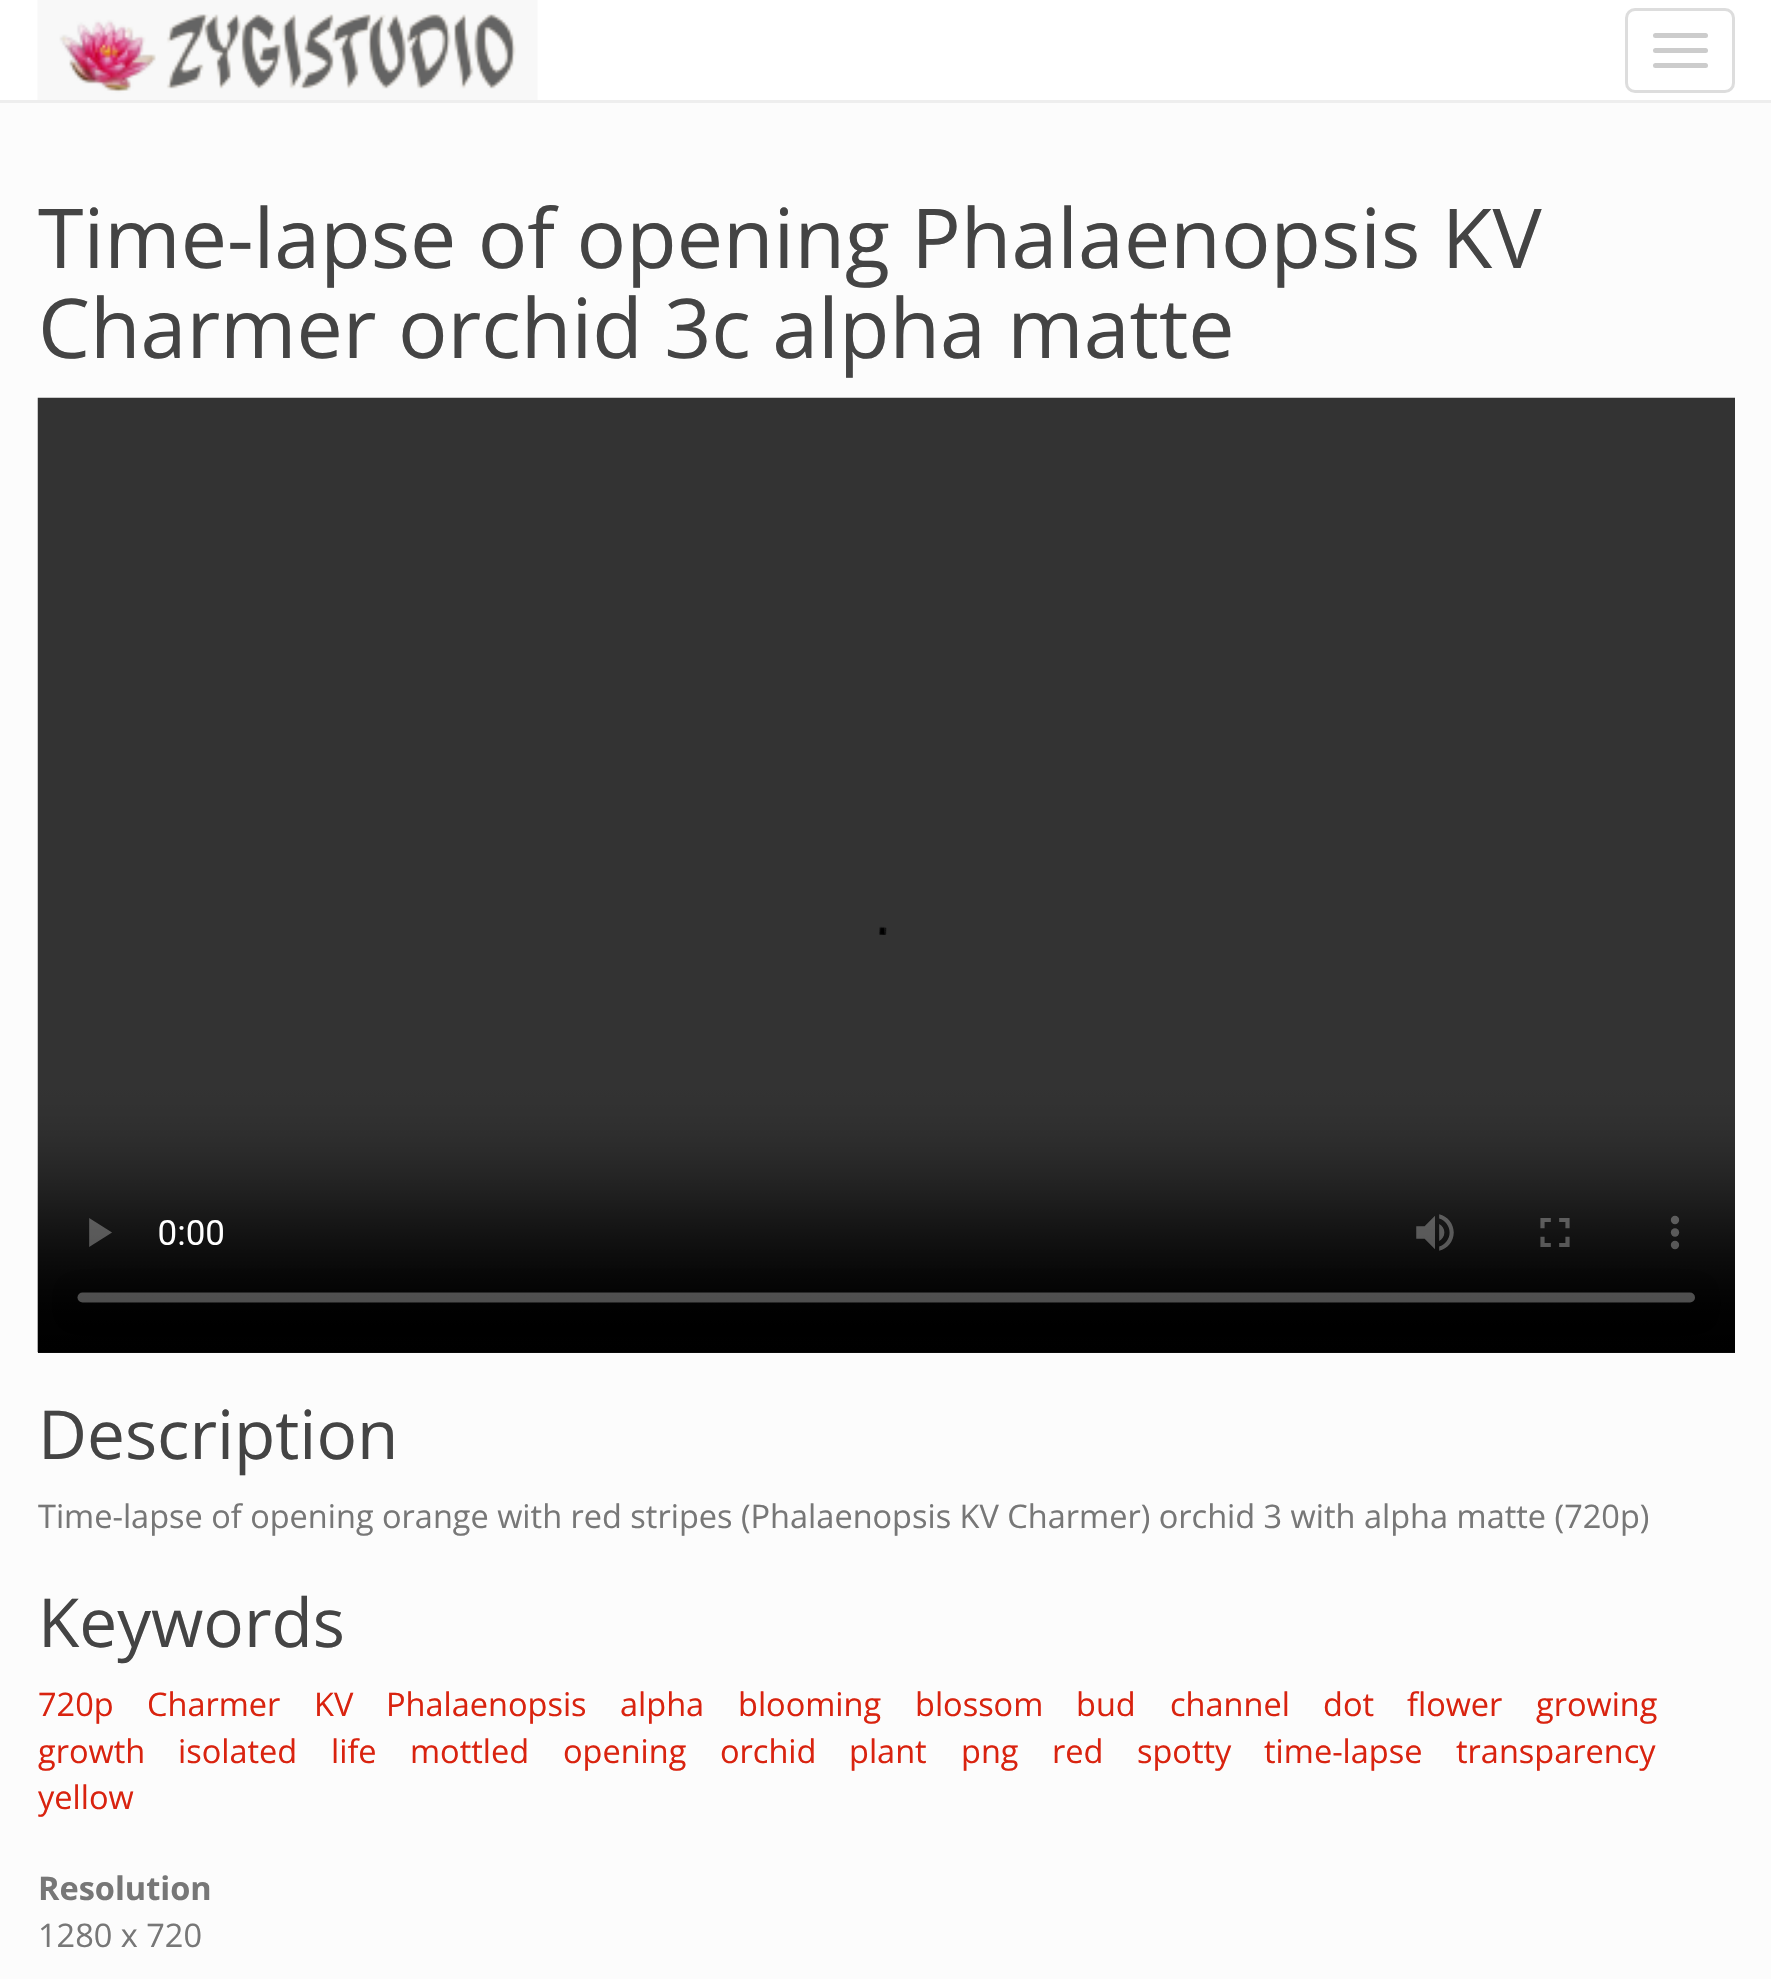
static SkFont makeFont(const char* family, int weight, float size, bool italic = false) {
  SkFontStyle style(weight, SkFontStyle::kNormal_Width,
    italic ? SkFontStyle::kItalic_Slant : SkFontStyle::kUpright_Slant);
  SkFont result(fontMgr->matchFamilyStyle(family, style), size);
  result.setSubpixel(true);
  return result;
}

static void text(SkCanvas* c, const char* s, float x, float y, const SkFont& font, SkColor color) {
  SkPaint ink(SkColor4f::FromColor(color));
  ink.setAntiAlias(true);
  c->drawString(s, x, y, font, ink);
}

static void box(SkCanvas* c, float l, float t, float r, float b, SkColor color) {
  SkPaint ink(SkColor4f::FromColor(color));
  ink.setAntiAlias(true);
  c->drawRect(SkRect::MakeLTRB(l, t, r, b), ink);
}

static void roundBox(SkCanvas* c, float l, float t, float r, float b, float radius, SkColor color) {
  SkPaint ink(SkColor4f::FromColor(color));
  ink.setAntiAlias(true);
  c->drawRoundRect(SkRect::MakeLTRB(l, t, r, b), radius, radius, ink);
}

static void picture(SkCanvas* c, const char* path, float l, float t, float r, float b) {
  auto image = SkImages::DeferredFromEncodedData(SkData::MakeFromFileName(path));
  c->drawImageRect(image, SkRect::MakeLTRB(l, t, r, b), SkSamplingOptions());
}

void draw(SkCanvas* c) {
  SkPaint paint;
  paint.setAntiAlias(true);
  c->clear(0xfffcfcfc);
  box(c, 0, 0, 1771, 100, 0xffffffff);
  box(c, 0, 100, 1771, 103, 0xffeeeeee);
  picture(c, "img_01.png", 37, 0, 538, 100);
  paint.setStyle(SkPaint::kStroke_Style);
  paint.setStrokeWidth(3);
  paint.setColor(0xffdddddd);
  c->drawRoundRect(SkRect::MakeLTRB(1626.5f, 9.5f, 1733.5f, 91.5f), 8.5f, 8.5f, paint);
  roundBox(c, 1653, 33, 1708, 38, 2.5f, 0xffcccccc);
  roundBox(c, 1653, 48, 1708, 53, 2.5f, 0xffcccccc);
  roundBox(c, 1653, 63, 1708, 68, 2.5f, 0xffcccccc);
  SkFont face1 = makeFont("Open Sans", 400, 82.5f);
  text(c, "Time-lapse of opening Phalaenopsis KV", 38, 268, face1, 0xff444444);
  text(c, "Charmer orchid 3c alpha matte", 38, 358, face1, 0xff444444);
  box(c, 38, 1352, 1735, 1353, 0xff000000);
  picture(c, "img_02.png", 37, 397, 1735, 1353);
  SkFont face2 = makeFont("Open Sans", 400, 67.5f);
  text(c, "Description", 38, 1459, face2, 0xff444444);
  SkFont face3 = makeFont("Open Sans", 400, 32.5f);
  text(c, "Time-lapse of opening orange with red stripes (Phalaenopsis KV Charmer) orchid 3 with alpha matte (720p)", 38, 1528, face3, 0xff777777);
  text(c, "Keywords", 38, 1647, face2, 0xff444444);
  text(c, "720p", 38, 1716, face3, 0xffd9230f);
  text(c, "Charmer", 147, 1716, face3, 0xffd9230f);
  text(c, "KV", 314, 1716, face3, 0xffd9230f);
  text(c, "Phalaenopsis", 386, 1716, face3, 0xffd9230f);
  text(c, "alpha", 620, 1716, face3, 0xffd9230f);
  text(c, "blooming", 738, 1716, face3, 0xffd9230f);
  text(c, "blossom", 915, 1716, face3, 0xffd9230f);
  text(c, "bud", 1076, 1716, face3, 0xffd9230f);
  text(c, "channel", 1170, 1716, face3, 0xffd9230f);
  text(c, "dot", 1323, 1716, face3, 0xffd9230f);
  text(c, "flower", 1407, 1716, face3, 0xffd9230f);
  text(c, "growing", 1536, 1716, face3, 0xffd9230f);
  text(c, "growth", 38, 1763, face3, 0xffd9230f);
  text(c, "isolated", 178, 1763, face3, 0xffd9230f);
  text(c, "life", 331, 1763, face3, 0xffd9230f);
  text(c, "mottled", 410, 1763, face3, 0xffd9230f);
  text(c, "opening", 563, 1763, face3, 0xffd9230f);
  text(c, "orchid", 720, 1763, face3, 0xffd9230f);
  text(c, "plant", 849, 1763, face3, 0xffd9230f);
  text(c, "png", 961, 1763, face3, 0xffd9230f);
  text(c, "red", 1052, 1763, face3, 0xffd9230f);
  text(c, "spotty", 1137, 1763, face3, 0xffd9230f);
  text(c, "time-lapse", 1264, 1763, face3, 0xffd9230f);
  text(c, "transparency", 1456, 1763, face3, 0xffd9230f);
  text(c, "yellow", 38, 1809, face3, 0xffd9230f);
  SkFont face4 = makeFont("Open Sans", 700, 32.5f);
  text(c, "Resolution", 38, 1900, face4, 0xff777777);
  text(c, "1280 x 720", 38, 1947, face3, 0xff777777);
}
